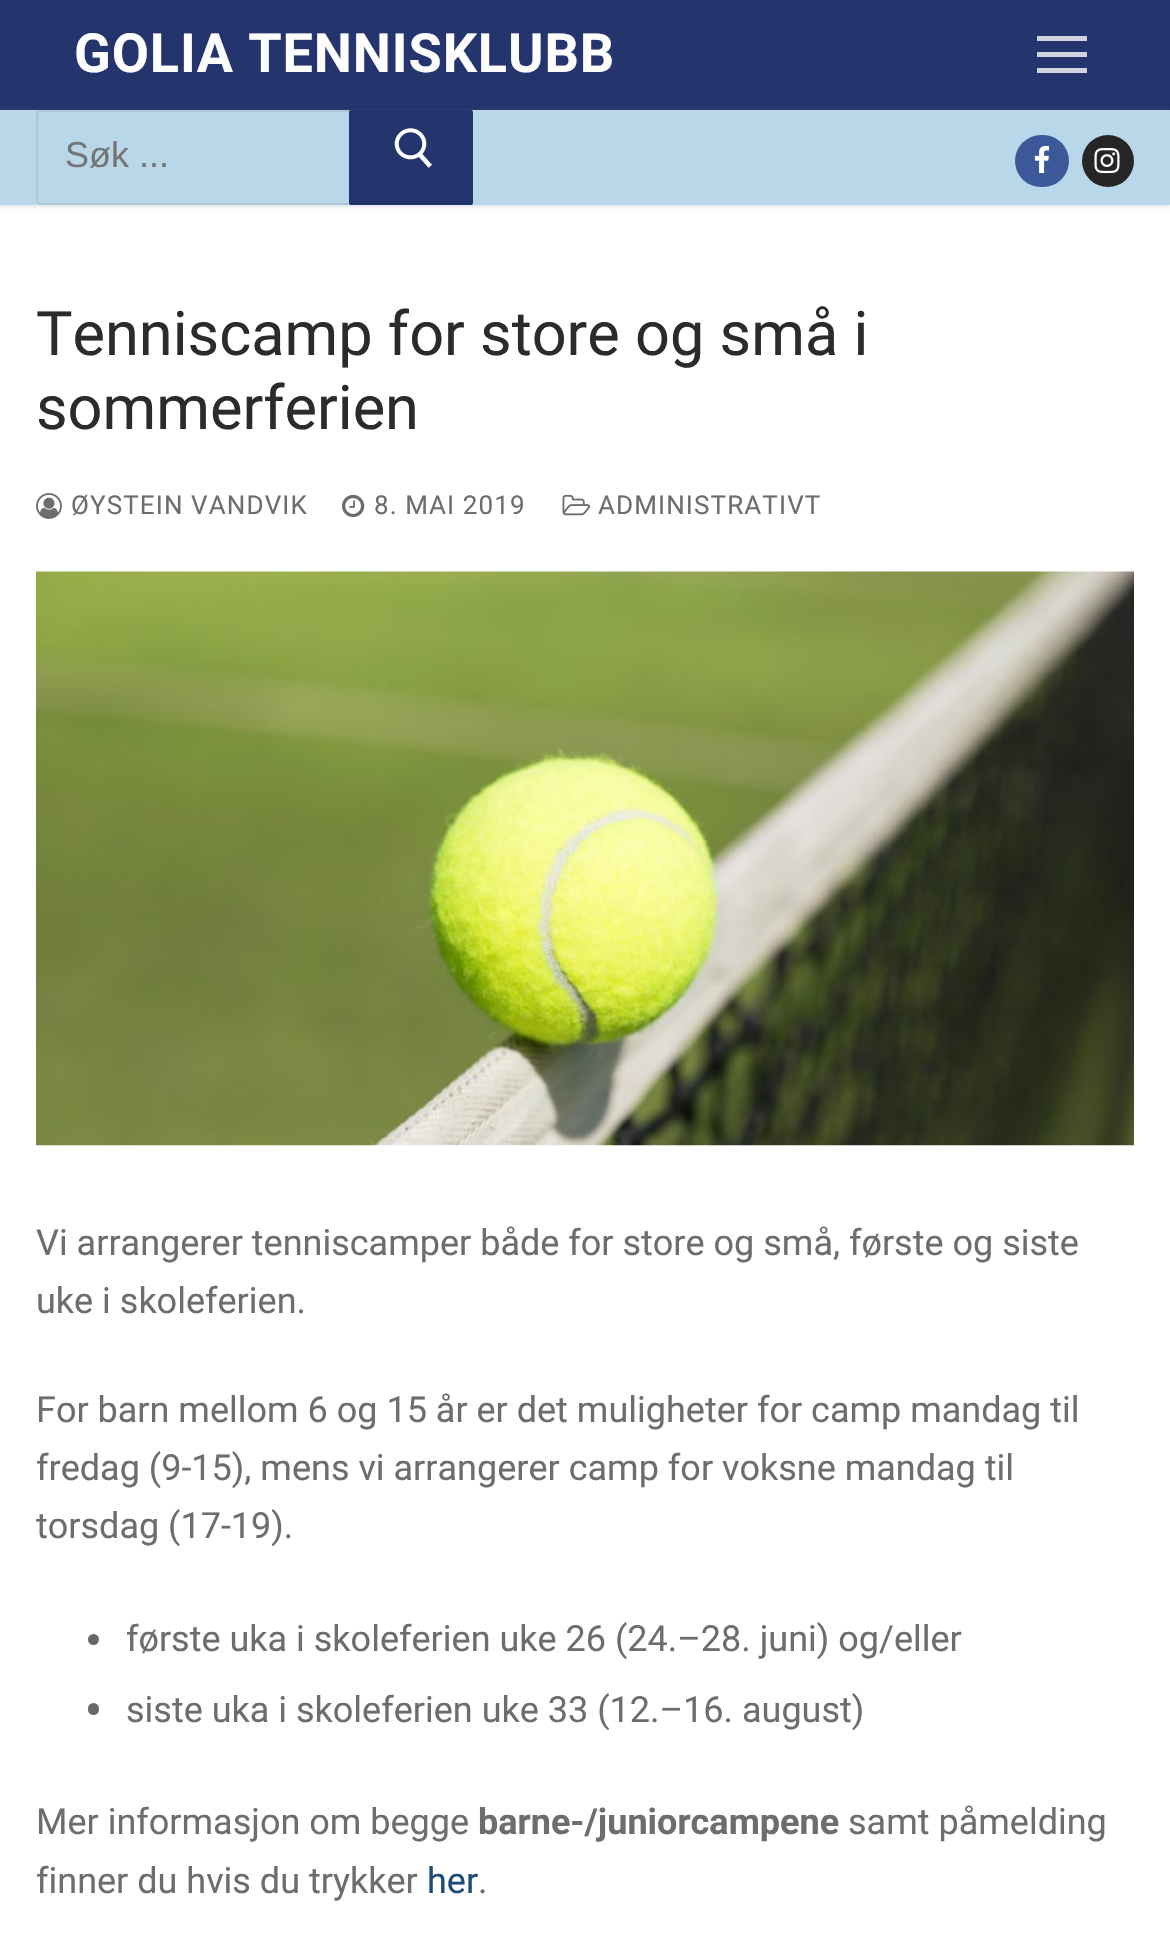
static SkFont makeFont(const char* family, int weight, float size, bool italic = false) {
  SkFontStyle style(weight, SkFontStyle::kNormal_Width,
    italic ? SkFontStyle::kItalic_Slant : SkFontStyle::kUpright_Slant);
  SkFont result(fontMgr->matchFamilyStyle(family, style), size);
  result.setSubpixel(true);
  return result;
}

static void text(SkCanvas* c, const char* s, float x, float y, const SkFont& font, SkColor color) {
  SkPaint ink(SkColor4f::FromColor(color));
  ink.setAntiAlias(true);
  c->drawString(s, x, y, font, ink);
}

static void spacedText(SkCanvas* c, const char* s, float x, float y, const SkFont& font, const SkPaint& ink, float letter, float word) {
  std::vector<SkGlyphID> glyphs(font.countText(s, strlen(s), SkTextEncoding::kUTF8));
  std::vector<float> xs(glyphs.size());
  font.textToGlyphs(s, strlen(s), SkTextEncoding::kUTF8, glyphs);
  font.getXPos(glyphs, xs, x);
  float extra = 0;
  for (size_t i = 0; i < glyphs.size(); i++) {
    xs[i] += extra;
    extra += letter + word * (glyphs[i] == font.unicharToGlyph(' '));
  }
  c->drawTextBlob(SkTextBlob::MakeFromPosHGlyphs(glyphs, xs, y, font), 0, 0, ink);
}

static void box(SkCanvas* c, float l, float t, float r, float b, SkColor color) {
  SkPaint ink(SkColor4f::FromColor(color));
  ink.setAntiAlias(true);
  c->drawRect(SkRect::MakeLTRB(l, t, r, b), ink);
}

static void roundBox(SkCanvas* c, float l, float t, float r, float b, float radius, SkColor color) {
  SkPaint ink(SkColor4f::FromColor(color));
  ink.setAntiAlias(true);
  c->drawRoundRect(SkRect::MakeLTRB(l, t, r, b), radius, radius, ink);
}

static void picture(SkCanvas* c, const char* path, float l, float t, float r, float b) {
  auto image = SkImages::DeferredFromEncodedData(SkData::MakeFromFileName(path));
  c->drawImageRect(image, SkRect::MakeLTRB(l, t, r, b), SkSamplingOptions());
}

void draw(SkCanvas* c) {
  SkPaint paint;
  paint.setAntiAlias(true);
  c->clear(0xffffffff);
  box(c, 0, 0, 1170, 110, 0xff24346c);
  SkFont face1 = makeFont("Roboto", 700, 54);
  paint.setColor(0xfffdfdfe);
  spacedText(c, "GOLIA TENNISKLUBB", 74, 72, face1, paint, 0.9f, 0);
  box(c, 1037, 52, 1087, 57, 0xffd1d4e0);
  box(c, 1037, 36, 1087, 41, 0xffd1d4e0);
  box(c, 1037, 68, 1087, 73, 0xffd1d4e0);
  paint.setColor(0xffe1e5ea);
  paint.setMaskFilter(SkMaskFilter::MakeBlur(kNormal_SkBlurStyle, 2));
  c->drawRect(SkRect::MakeLTRB(0, 113, 1170, 207), paint);
  paint.setMaskFilter(nullptr);
  box(c, 0, 110, 1170, 205, 0xffb8d8ea);
  paint.setStyle(SkPaint::kStroke_Style);
  paint.setStrokeWidth(2);
  paint.setColor(0xffadc6d5);
  c->drawRoundRect(SkRect::MakeLTRB(37, 111, 438, 204), 4, 4, paint);
  SkFont face2 = makeFont("Liberation Sans", 400, 36);
  text(c, "Søk ...", 65, 167, face2, 0xff757575);
  roundBox(c, 349, 110, 473, 205, 2, 0xff24346c);
  picture(c, "img_01.png", 394, 128, 432, 168);
  roundBox(c, 1015, 135, 1069, 187, 26, 0xff3b5998);
  picture(c, "img_02.png", 1034, 145, 1050, 174);
  paint.setStyle(SkPaint::kFill_Style);
  paint.setColor(0xff262626);
  c->drawCircle(1108, 161, 26, paint);
  picture(c, "img_03.png", 1094, 148, 1120, 174);
  SkFont face3 = makeFont("Roboto", 400, 61.25f);
  text(c, "Tenniscamp for store og små i", 36, 355, face3, 0xff2b2b2b);
  text(c, "sommerferien", 36, 429, face3, 0xff2b2b2b);
  picture(c, "img_04.png", 36, 493, 62, 519);
  SkFont face4 = makeFont("Roboto", 400, 26);
  paint.setColor(0xff6d6d6d);
  spacedText(c, "ØYSTEIN VANDVIK", 71, 514, face4, paint, 1.1f, 0);
  picture(c, "img_05.png", 342, 494, 365, 518);
  spacedText(c, "8. MAI 2019", 374, 514, face4, paint, 1.1f, 0);
  picture(c, "img_06.png", 562, 494, 591, 516);
  spacedText(c, "ADMINISTRATIVT", 598, 514, face4, paint, 1.1f, 0);
  picture(c, "img_07.png", 36, 571, 1134, 1146);
  SkFont face5 = makeFont("Roboto", 400, 36);
  text(c, "Vi arrangerer tenniscamper både for store og små, første og siste", 36, 1255, face5, 0xff6d6d6d);
  text(c, "uke i skoleferien.", 36, 1313, face5, 0xff6d6d6d);
  text(c, "For barn mellom 6 og 15 år er det muligheter for camp mandag til", 36, 1422, face5, 0xff6d6d6d);
  text(c, "fredag (9-15), mens vi arrangerer camp for voksne mandag til", 36, 1480, face5, 0xff6d6d6d);
  text(c, "torsdag (17-19).", 36, 1538, face5, 0xff6d6d6d);
  paint.setColor(0xff686868);
  c->drawCircle(93.5f, 1639.5f, 5.5f, paint);
  text(c, "første uka i skoleferien uke 26 (24.–28. juni) og/eller", 126, 1651, face5, 0xff6d6d6d);
  roundBox(c, 88, 1703, 99, 1715, 5.5f, 0xff686868);
  text(c, "siste uka i skoleferien uke 33 (12.–16. august)", 126, 1722, face5, 0xff6d6d6d);
  text(c, "Mer informasjon om begge", 36, 1834, face5, 0xff6d6d6d);
  SkFont face6 = makeFont("Roboto", 700, 36);
  text(c, "barne-/juniorcampene", 478, 1834, face6, 0xff6d6d6d);
  text(c, "samt påmelding", 848, 1834, face5, 0xff6d6d6d);
  text(c, "finner du hvis du trykker", 36, 1893, face5, 0xff6d6d6d);
  text(c, "her", 427, 1893, face5, 0xff1e4b75);
  text(c, ".", 478, 1893, face5, 0xff6d6d6d);
}
